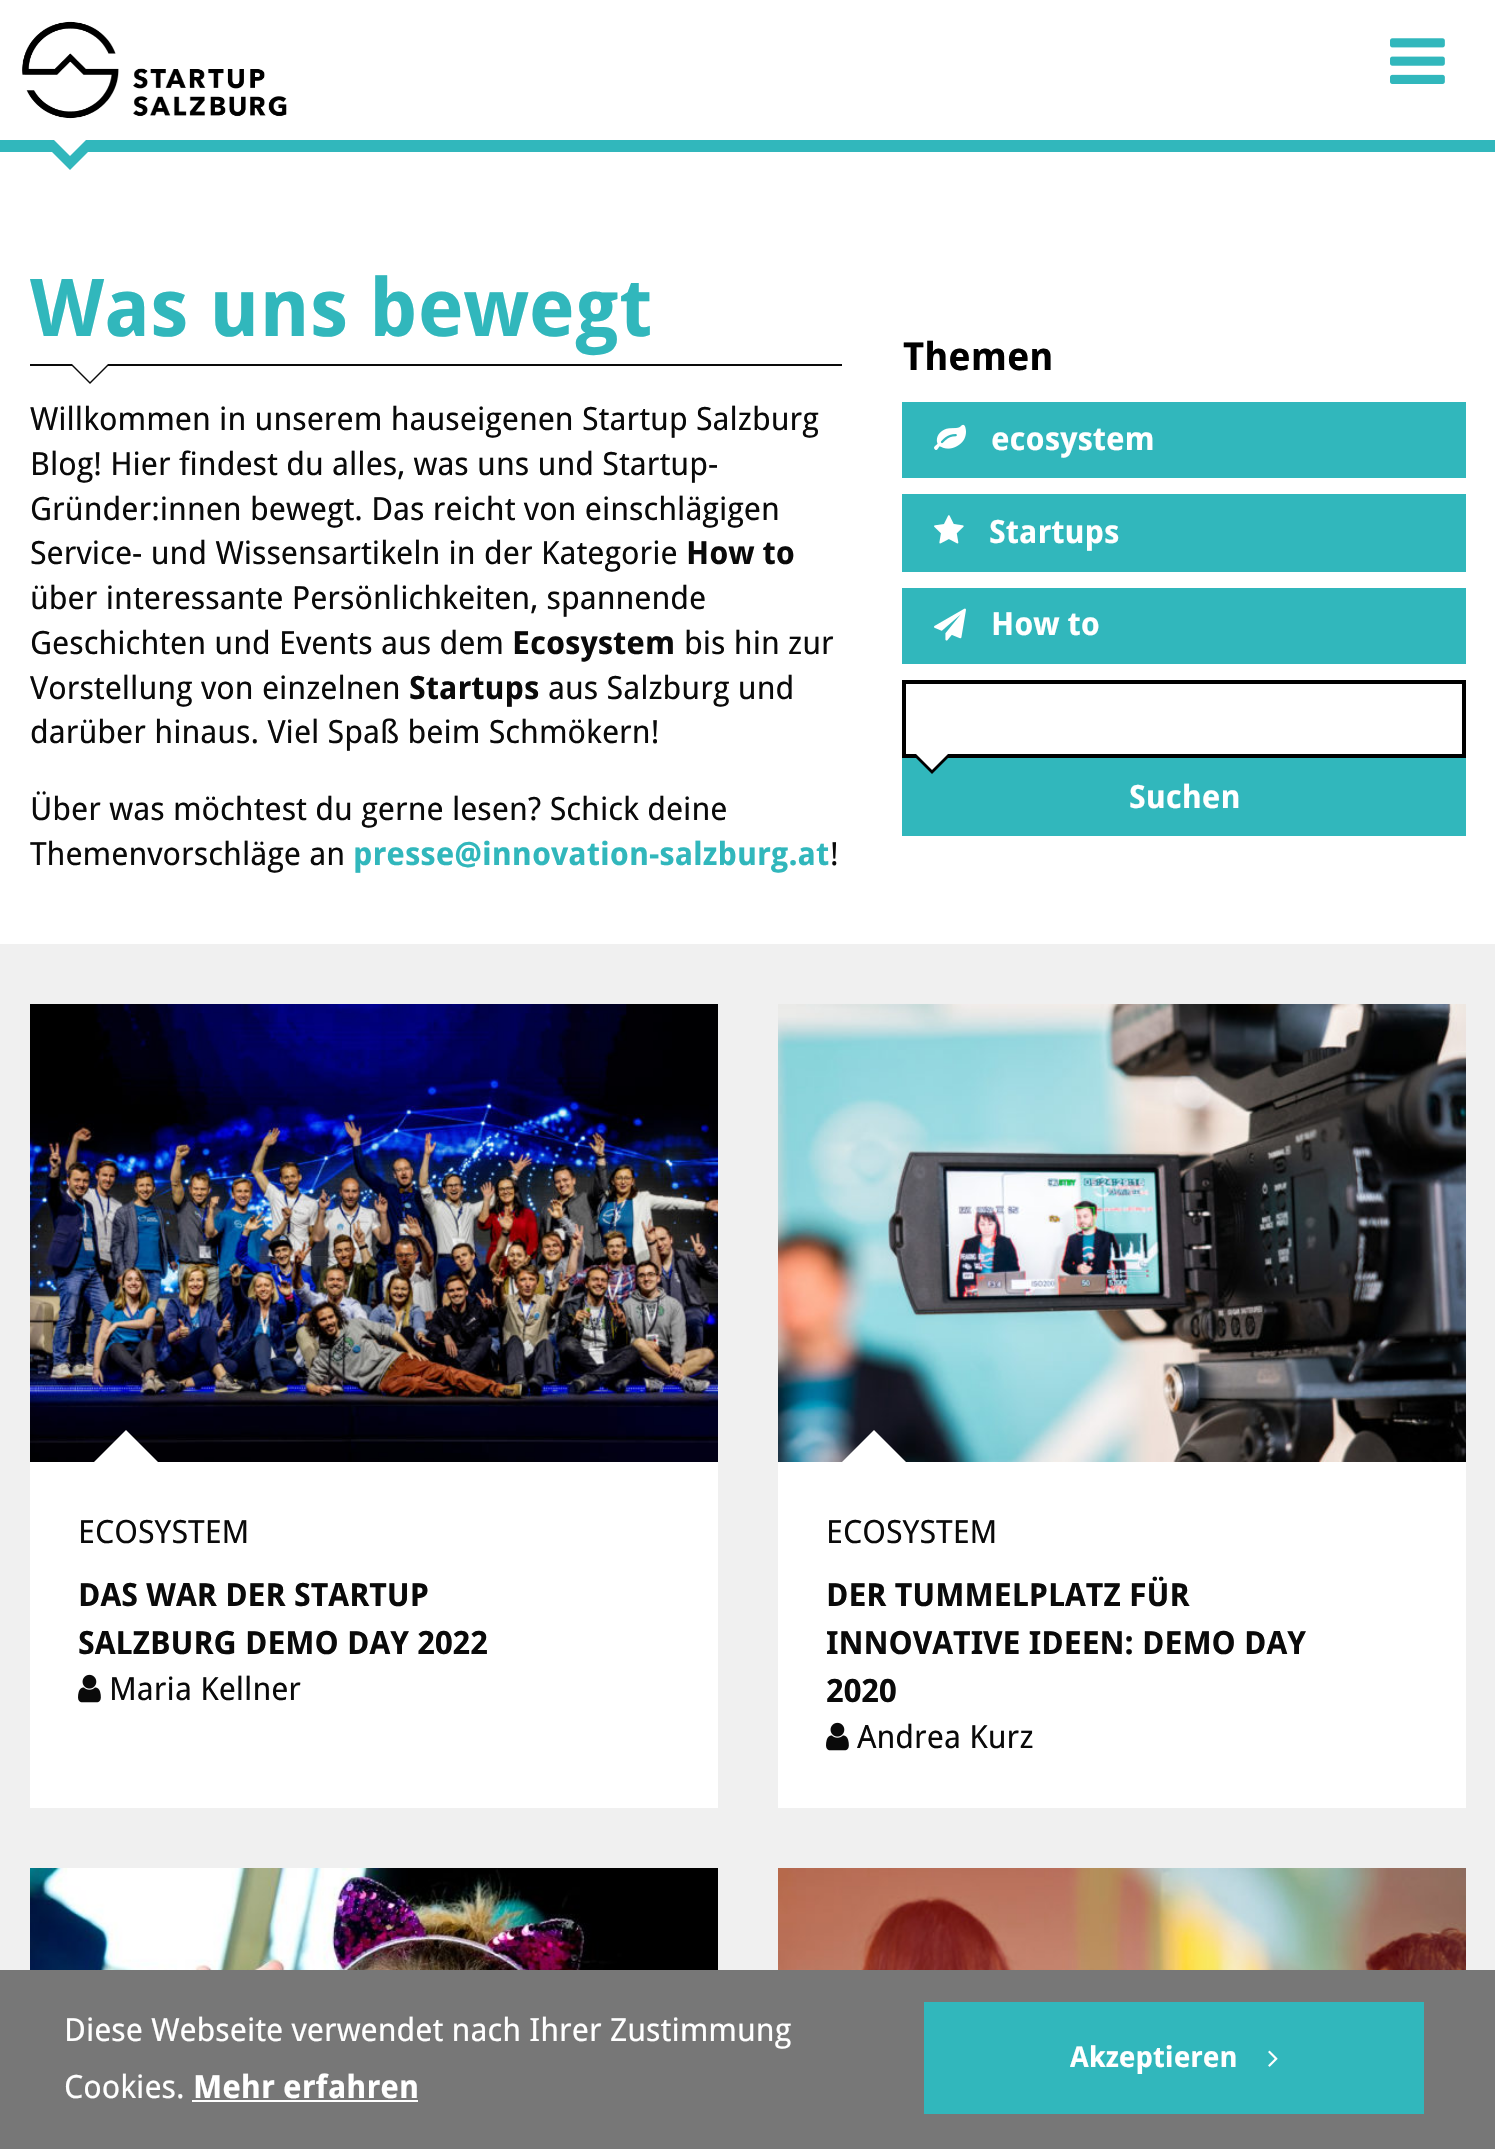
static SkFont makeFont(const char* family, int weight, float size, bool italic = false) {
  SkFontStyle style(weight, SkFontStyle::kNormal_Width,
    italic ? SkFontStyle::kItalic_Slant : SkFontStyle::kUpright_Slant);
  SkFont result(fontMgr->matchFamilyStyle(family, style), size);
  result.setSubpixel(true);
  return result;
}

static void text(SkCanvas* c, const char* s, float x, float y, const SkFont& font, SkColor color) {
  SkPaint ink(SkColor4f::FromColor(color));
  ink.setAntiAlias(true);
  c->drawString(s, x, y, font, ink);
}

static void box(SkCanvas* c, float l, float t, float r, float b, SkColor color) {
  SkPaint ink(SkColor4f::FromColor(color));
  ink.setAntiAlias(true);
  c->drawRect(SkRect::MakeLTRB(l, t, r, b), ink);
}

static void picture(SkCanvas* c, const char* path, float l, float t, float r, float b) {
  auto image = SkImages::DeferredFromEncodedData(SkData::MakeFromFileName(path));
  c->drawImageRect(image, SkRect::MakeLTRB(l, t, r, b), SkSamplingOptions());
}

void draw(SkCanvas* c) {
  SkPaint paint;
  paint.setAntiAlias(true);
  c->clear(0xffffffff);
  box(c, 0, 140, 1495, 152, 0xff31b7bc);
  picture(c, "img_01.png", 22, 21, 287, 119);
  paint.setColor(0xff31b7bc);
  c->drawPath(SkPathBuilder().moveTo(40, 140).lineTo(100, 140).lineTo(70, 170).close().detach(), paint);
  paint.setColor(0xffffffff);
  c->drawPath(SkPathBuilder().moveTo(40, 126).lineTo(100, 126).lineTo(70, 156).close().detach(), paint);
  picture(c, "img_02.png", 1390, 38, 1445, 84);
  box(c, 30, 364, 842, 366, 0xff0a0a0a);
  SkFont face1 = makeFont("Droid Sans", 700, 80);
  text(c, "Was uns bewegt", 30, 336, face1, 0xff31b7bc);
  paint.setColor(0xff0a0a0a);
  c->drawPath(SkPathBuilder().moveTo(70, 364).lineTo(110, 364).lineTo(90, 384).close().detach(), paint);
  paint.setColor(0xffffffff);
  c->drawPath(SkPathBuilder().moveTo(70, 362).lineTo(110, 362).lineTo(90, 382).close().detach(), paint);
  SkFont face2 = makeFont("Droid Sans", 400, 32);
  text(c, "Willkommen in unserem hauseigenen Startup Salzburg", 30, 430, face2, 0xff0a0a0a);
  text(c, "Blog! Hier findest du alles, was uns und Startup-", 30, 475, face2, 0xff0a0a0a);
  text(c, "Gründer:innen bewegt. Das reicht von einschlägigen", 30, 520, face2, 0xff0a0a0a);
  text(c, "Service- und Wissensartikeln in der Kategorie", 30, 564, face2, 0xff0a0a0a);
  SkFont face3 = makeFont("Droid Sans", 700, 32);
  text(c, "How to", 686, 564, face3, 0xff0a0a0a);
  text(c, "über interessante Persönlichkeiten, spannende", 30, 609, face2, 0xff0a0a0a);
  text(c, "Geschichten und Events aus dem", 30, 654, face2, 0xff0a0a0a);
  text(c, "Ecosystem", 512, 654, face3, 0xff0a0a0a);
  text(c, "bis hin zur", 684, 654, face2, 0xff0a0a0a);
  text(c, "Vorstellung von einzelnen", 30, 699, face2, 0xff0a0a0a);
  text(c, "Startups", 409, 699, face3, 0xff0a0a0a);
  text(c, "aus Salzburg und", 548, 699, face2, 0xff0a0a0a);
  text(c, "darüber hinaus. Viel Spaß beim Schmökern!", 30, 743, face2, 0xff0a0a0a);
  text(c, "Über was möchtest du gerne lesen? Schick deine", 30, 820, face2, 0xff0a0a0a);
  text(c, "Themenvorschläge an", 30, 865, face2, 0xff0a0a0a);
  text(c, "presse@innovation-salzburg.at", 353, 865, face3, 0xff31b7bc);
  text(c, "!", 830, 865, face2, 0xff0a0a0a);
  SkFont face4 = makeFont("Droid Sans", 700, 38.5f);
  text(c, "Themen", 903, 370, face4, 0xff000000);
  box(c, 902, 402, 1466, 478, 0xff31b7bc);
  picture(c, "img_03.png", 934, 424, 966, 450);
  text(c, "ecosystem", 991, 450, face3, 0xffffffff);
  box(c, 902, 494, 1466, 572, 0xff31b7bc);
  picture(c, "img_04.png", 934, 515, 964, 544);
  text(c, "Startups", 989, 543, face3, 0xffffffff);
  box(c, 902, 588, 1466, 664, 0xff31b7bc);
  picture(c, "img_05.png", 934, 608, 966, 641);
  text(c, "How to", 991, 635, face3, 0xffffffff);
  paint.setStyle(SkPaint::kStroke_Style);
  paint.setStrokeWidth(4);
  paint.setColor(0xff000000);
  c->drawRect(SkRect::MakeLTRB(904, 682, 1464, 756), paint);
  box(c, 902, 758, 1466, 836, 0xff31b7bc);
  paint.setStyle(SkPaint::kFill_Style);
  c->drawPath(SkPathBuilder().moveTo(912, 754).lineTo(952, 754).lineTo(932, 774).close().detach(), paint);
  paint.setColor(0xffffffff);
  c->drawPath(SkPathBuilder().moveTo(916, 754).lineTo(948, 754).lineTo(932, 770).close().detach(), paint);
  text(c, "Suchen", 1129, 808, face3, 0xffffffff);
  box(c, 0, 944, 1495, 1970, 0xfff0f0f0);
  box(c, 30, 1462, 718, 1808, 0xffffffff);
  picture(c, "img_06.png", 30, 1004, 718, 1462);
  c->drawPath(SkPathBuilder().moveTo(174, 1478).lineTo(78, 1478).lineTo(126, 1430).close().detach(), paint);
  text(c, "ECOSYSTEM", 78, 1543, face2, 0xff0a0a0a);
  text(c, "DAS WAR DER STARTUP", 78, 1606, face3, 0xff0a0a0a);
  text(c, "SALZBURG DEMO DAY 2022", 78, 1654, face3, 0xff0a0a0a);
  picture(c, "img_07.png", 78, 1674, 101, 1703);
  text(c, "Maria Kellner", 109, 1700, face2, 0xff0a0a0a);
  box(c, 778, 1462, 1466, 1808, 0xffffffff);
  picture(c, "img_08.png", 778, 1004, 1466, 1462);
  c->drawPath(SkPathBuilder().moveTo(922, 1478).lineTo(826, 1478).lineTo(874, 1430).close().detach(), paint);
  text(c, "ECOSYSTEM", 826, 1543, face2, 0xff0a0a0a);
  text(c, "DER TUMMELPLATZ FÜR", 826, 1606, face3, 0xff0a0a0a);
  text(c, "INNOVATIVE IDEEN: DEMO DAY", 826, 1654, face3, 0xff0a0a0a);
  text(c, "2020", 826, 1702, face3, 0xff0a0a0a);
  picture(c, "img_07.png", 826, 1722, 849, 1751);
  text(c, "Andrea Kurz", 857, 1748, face2, 0xff0a0a0a);
  picture(c, "img_09.png", 30, 1868, 718, 1970);
  picture(c, "img_10.png", 778, 1868, 1466, 1970);
  box(c, 0, 1970, 1495, 2149, 0xff777777);
  text(c, "Diese Webseite verwendet nach Ihrer Zustimmung", 64, 2041, face2, 0xffffffff);
  text(c, "Cookies.", 64, 2098, face2, 0xffffffff);
  text(c, "Mehr erfahren", 193, 2098, face3, 0xffffffff);
  box(c, 192, 2100, 418, 2102, 0xffffffff);
  box(c, 924, 2002, 1424, 2114, 0xff31b7bc);
  SkFont face5 = makeFont("Droid Sans", 700, 28.75f);
  text(c, "Akzeptieren", 1070, 2067, face5, 0xffffffff);
  picture(c, "img_11.png", 1268, 2050, 1278, 2067);
}
